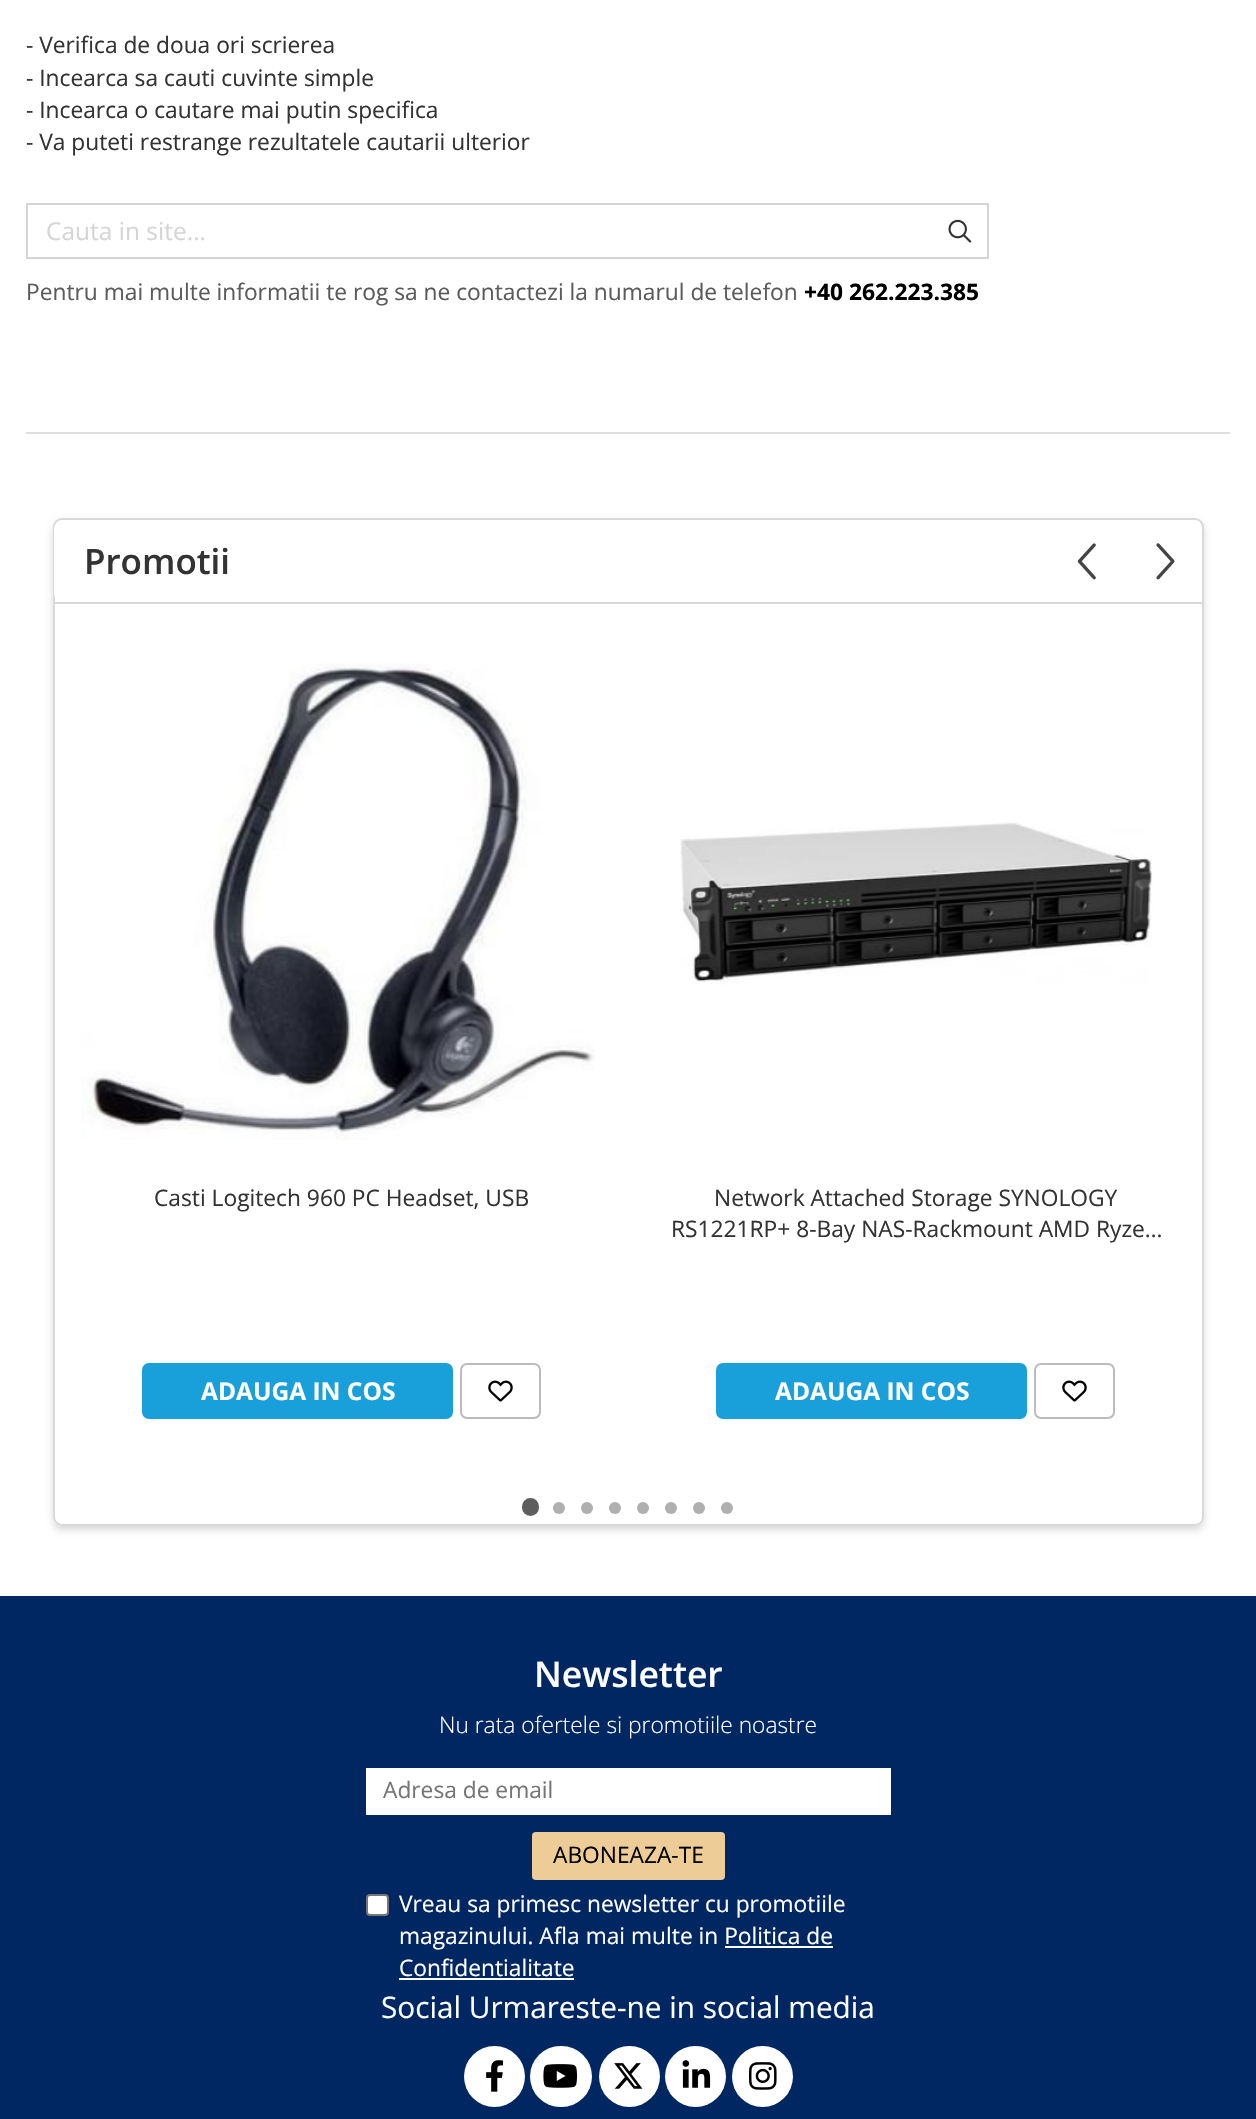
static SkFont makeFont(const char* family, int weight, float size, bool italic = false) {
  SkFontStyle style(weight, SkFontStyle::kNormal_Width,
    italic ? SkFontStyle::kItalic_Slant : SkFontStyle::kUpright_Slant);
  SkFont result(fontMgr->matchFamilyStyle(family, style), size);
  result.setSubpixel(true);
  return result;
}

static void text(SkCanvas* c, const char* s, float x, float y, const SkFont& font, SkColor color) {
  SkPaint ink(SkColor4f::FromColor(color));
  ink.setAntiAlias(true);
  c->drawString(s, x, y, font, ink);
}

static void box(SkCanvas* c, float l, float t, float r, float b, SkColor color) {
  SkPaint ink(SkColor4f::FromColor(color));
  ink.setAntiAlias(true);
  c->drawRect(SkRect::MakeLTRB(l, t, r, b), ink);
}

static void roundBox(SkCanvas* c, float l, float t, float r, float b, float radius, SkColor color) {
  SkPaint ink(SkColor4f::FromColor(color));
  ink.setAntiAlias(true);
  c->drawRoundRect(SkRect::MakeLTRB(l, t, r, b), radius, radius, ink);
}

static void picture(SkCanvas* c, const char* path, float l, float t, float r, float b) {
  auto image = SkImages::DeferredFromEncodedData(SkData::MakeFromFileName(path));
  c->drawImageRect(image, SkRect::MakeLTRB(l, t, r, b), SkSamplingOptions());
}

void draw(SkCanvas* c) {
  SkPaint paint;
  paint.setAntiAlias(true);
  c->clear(0xffffffff);
  box(c, 26, 432, 1230, 434, 0xffdfdfdf);
  SkFont face1 = makeFont("Open Sans", 400, 22.75f);
  text(c, "- Verifica de doua ori scrierea", 26, 53, face1, 0xff333333);
  text(c, "- Incearca sa cauti cuvinte simple", 26, 86, face1, 0xff333333);
  text(c, "- Incearca o cautare mai putin specifica", 26, 118, face1, 0xff333333);
  text(c, "- Va puteti restrange rezultatele cautarii ulterior", 26, 150, face1, 0xff333333);
  paint.setStyle(SkPaint::kStroke_Style);
  paint.setStrokeWidth(2);
  paint.setColor(0xffd5d5d5);
  c->drawRect(SkRect::MakeLTRB(27, 204, 988, 258), paint);
  SkFont face2 = makeFont("Open Sans", 400, 24.5f);
  text(c, "Cauta in site...", 46, 240, face2, 0xffd5d5d5);
  picture(c, "img_01.png", 948, 219, 972, 243);
  text(c, "Pentru mai multe informatii te rog sa ne contactezi la numarul de telefon", 26, 300, face1, 0xff5b5b5b);
  SkFont face3 = makeFont("Open Sans", 700, 22.75f);
  text(c, "+40 262.223.385", 804, 300, face3, 0xff000000);
  c->save();
  c->clipPath(SkPathBuilder(SkPathFillType::kEvenOdd).moveTo(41, 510).lineTo(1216, 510).lineTo(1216, 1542).lineTo(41, 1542).close().moveTo(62, 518).lineTo(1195, 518).cubicTo(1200, 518, 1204, 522, 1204, 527).lineTo(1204, 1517).cubicTo(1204, 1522, 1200, 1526, 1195, 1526).lineTo(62, 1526).cubicTo(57, 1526, 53, 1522, 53, 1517).lineTo(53, 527).cubicTo(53, 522, 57, 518, 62, 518).close().detach(), true);
  paint.setStyle(SkPaint::kFill_Style);
  paint.setColor(0xffd9d9d9);
  paint.setMaskFilter(SkMaskFilter::MakeBlur(kNormal_SkBlurStyle, 3.5f));
  c->drawRoundRect(SkRect::MakeLTRB(53, 522, 1204, 1530), 9, 9, paint);
  paint.setMaskFilter(nullptr);
  c->restore();
  paint.setStyle(SkPaint::kStroke_Style);
  c->drawRoundRect(SkRect::MakeLTRB(54, 519, 1203, 1525), 8, 8, paint);
  box(c, 54, 602, 1202, 604, 0xffd9d9d9);
  roundBox(c, 54, 520, 261, 602, 9, 0xffffffff);
  SkFont face4 = makeFont("Open Sans", 600, 35);
  text(c, "Promotii", 84, 574, face4, 0xff333333);
  picture(c, "img_02.png", 1077, 543, 1096, 580);
  picture(c, "img_03.png", 1156, 543, 1175, 580);
  roundBox(c, 522, 1498, 539, 1516, 8.5f, 0xff5e5e5e);
  paint.setStyle(SkPaint::kFill_Style);
  paint.setColor(0xffafafaf);
  c->drawCircle(559, 1508, 6, paint);
  c->drawCircle(587, 1508, 6, paint);
  c->drawCircle(615, 1508, 6, paint);
  c->drawCircle(643, 1508, 6, paint);
  c->drawCircle(671, 1508, 6, paint);
  c->drawCircle(699, 1508, 6, paint);
  c->drawCircle(727, 1508, 6, paint);
  picture(c, "img_04.png", 81, 663, 595, 1140);
  text(c, "Casti Logitech 960 PC Headset, USB", 154, 1206, face1, 0xff333333);
  roundBox(c, 142, 1363, 453, 1419, 7, 0xff19a0da);
  SkFont face5 = makeFont("Open Sans", 700, 24.5f);
  text(c, "ADAUGA IN COS", 201, 1400, face5, 0xffffffff);
  paint.setStyle(SkPaint::kStroke_Style);
  paint.setColor(0xffbbbbbb);
  c->drawRoundRect(SkRect::MakeLTRB(461, 1364, 540, 1418), 6, 6, paint);
  picture(c, "img_05.png", 488, 1380, 513, 1402);
  picture(c, "img_06.png", 680, 822, 1153, 985);
  text(c, "Network Attached Storage SYNOLOGY", 714, 1206, face1, 0xff333333);
  text(c, "RS1221RP+ 8-Bay NAS-Rackmount AMD Ryze…", 671, 1237, face1, 0xff333333);
  roundBox(c, 716, 1363, 1027, 1419, 7, 0xff19a0da);
  text(c, "ADAUGA IN COS", 775, 1400, face5, 0xffffffff);
  c->drawRoundRect(SkRect::MakeLTRB(1035, 1364, 1114, 1418), 6, 6, paint);
  picture(c, "img_05.png", 1062, 1380, 1087, 1402);
  box(c, 0, 1596, 1256, 2119, 0xff002761);
  SkFont face6 = makeFont("Open Sans", 600, 35.5f);
  text(c, "Newsletter", 534, 1687, face6, 0xffffffff);
  SkFont face7 = makeFont("Open Sans", 300, 22.75f);
  text(c, "Nu rata ofertele si promotiile noastre", 439, 1733, face7, 0xffffffff);
  box(c, 366, 1768, 891, 1815, 0xffffffff);
  text(c, "Adresa de email", 383, 1798, face1, 0xff757575);
  roundBox(c, 532, 1832, 725, 1880, 4, 0xffedcc97);
  text(c, "ABONEAZA-TE", 553, 1863, face1, 0xff000000);
  paint.setStyle(SkPaint::kFill_Style);
  paint.setColor(0xffffffff);
  c->drawRoundRect(SkRect::MakeLTRB(367, 1895, 388, 1915), 3, 3, paint);
  paint.setStyle(SkPaint::kStroke_Style);
  paint.setColor(0xff767676);
  c->drawRoundRect(SkRect::MakeLTRB(367, 1895, 388, 1915), 3, 3, paint);
  text(c, "Vreau sa primesc newsletter cu promotiile", 399, 1912, face1, 0xffffffff);
  text(c, "magazinului. Afla mai multe in Politica de", 399, 1944, face1, 0xffffffff);
  text(c, "Confidentialitate", 399, 1976, face1, 0xffffffff);
  box(c, 725, 1946, 833, 1948, 0xffffffff);
  box(c, 399, 1978, 574, 1980, 0xffffffff);
  SkFont face8 = makeFont("Open Sans", 400, 29.75f);
  text(c, "Social Urmareste-ne in social media", 381, 2018, face8, 0xffffffff);
  paint.setStyle(SkPaint::kFill_Style);
  paint.setColor(0xffffffff);
  c->drawCircle(494.5f, 2076.5f, 30.5f, paint);
  picture(c, "img_07.png", 486, 2060, 504, 2092);
  roundBox(c, 530, 2046, 592, 2107, 30.5f, 0xffffffff);
  picture(c, "img_08.png", 543, 2064, 577, 2088);
  c->drawCircle(629.5f, 2076.5f, 30.5f, paint);
  picture(c, "img_09.png", 614, 2063, 643, 2089);
  c->drawCircle(695.5f, 2076.5f, 30.5f, paint);
  picture(c, "img_10.png", 682, 2060, 711, 2088);
  c->drawCircle(762.5f, 2076.5f, 30.5f, paint);
  picture(c, "img_11.png", 749, 2062, 777, 2090);
}
